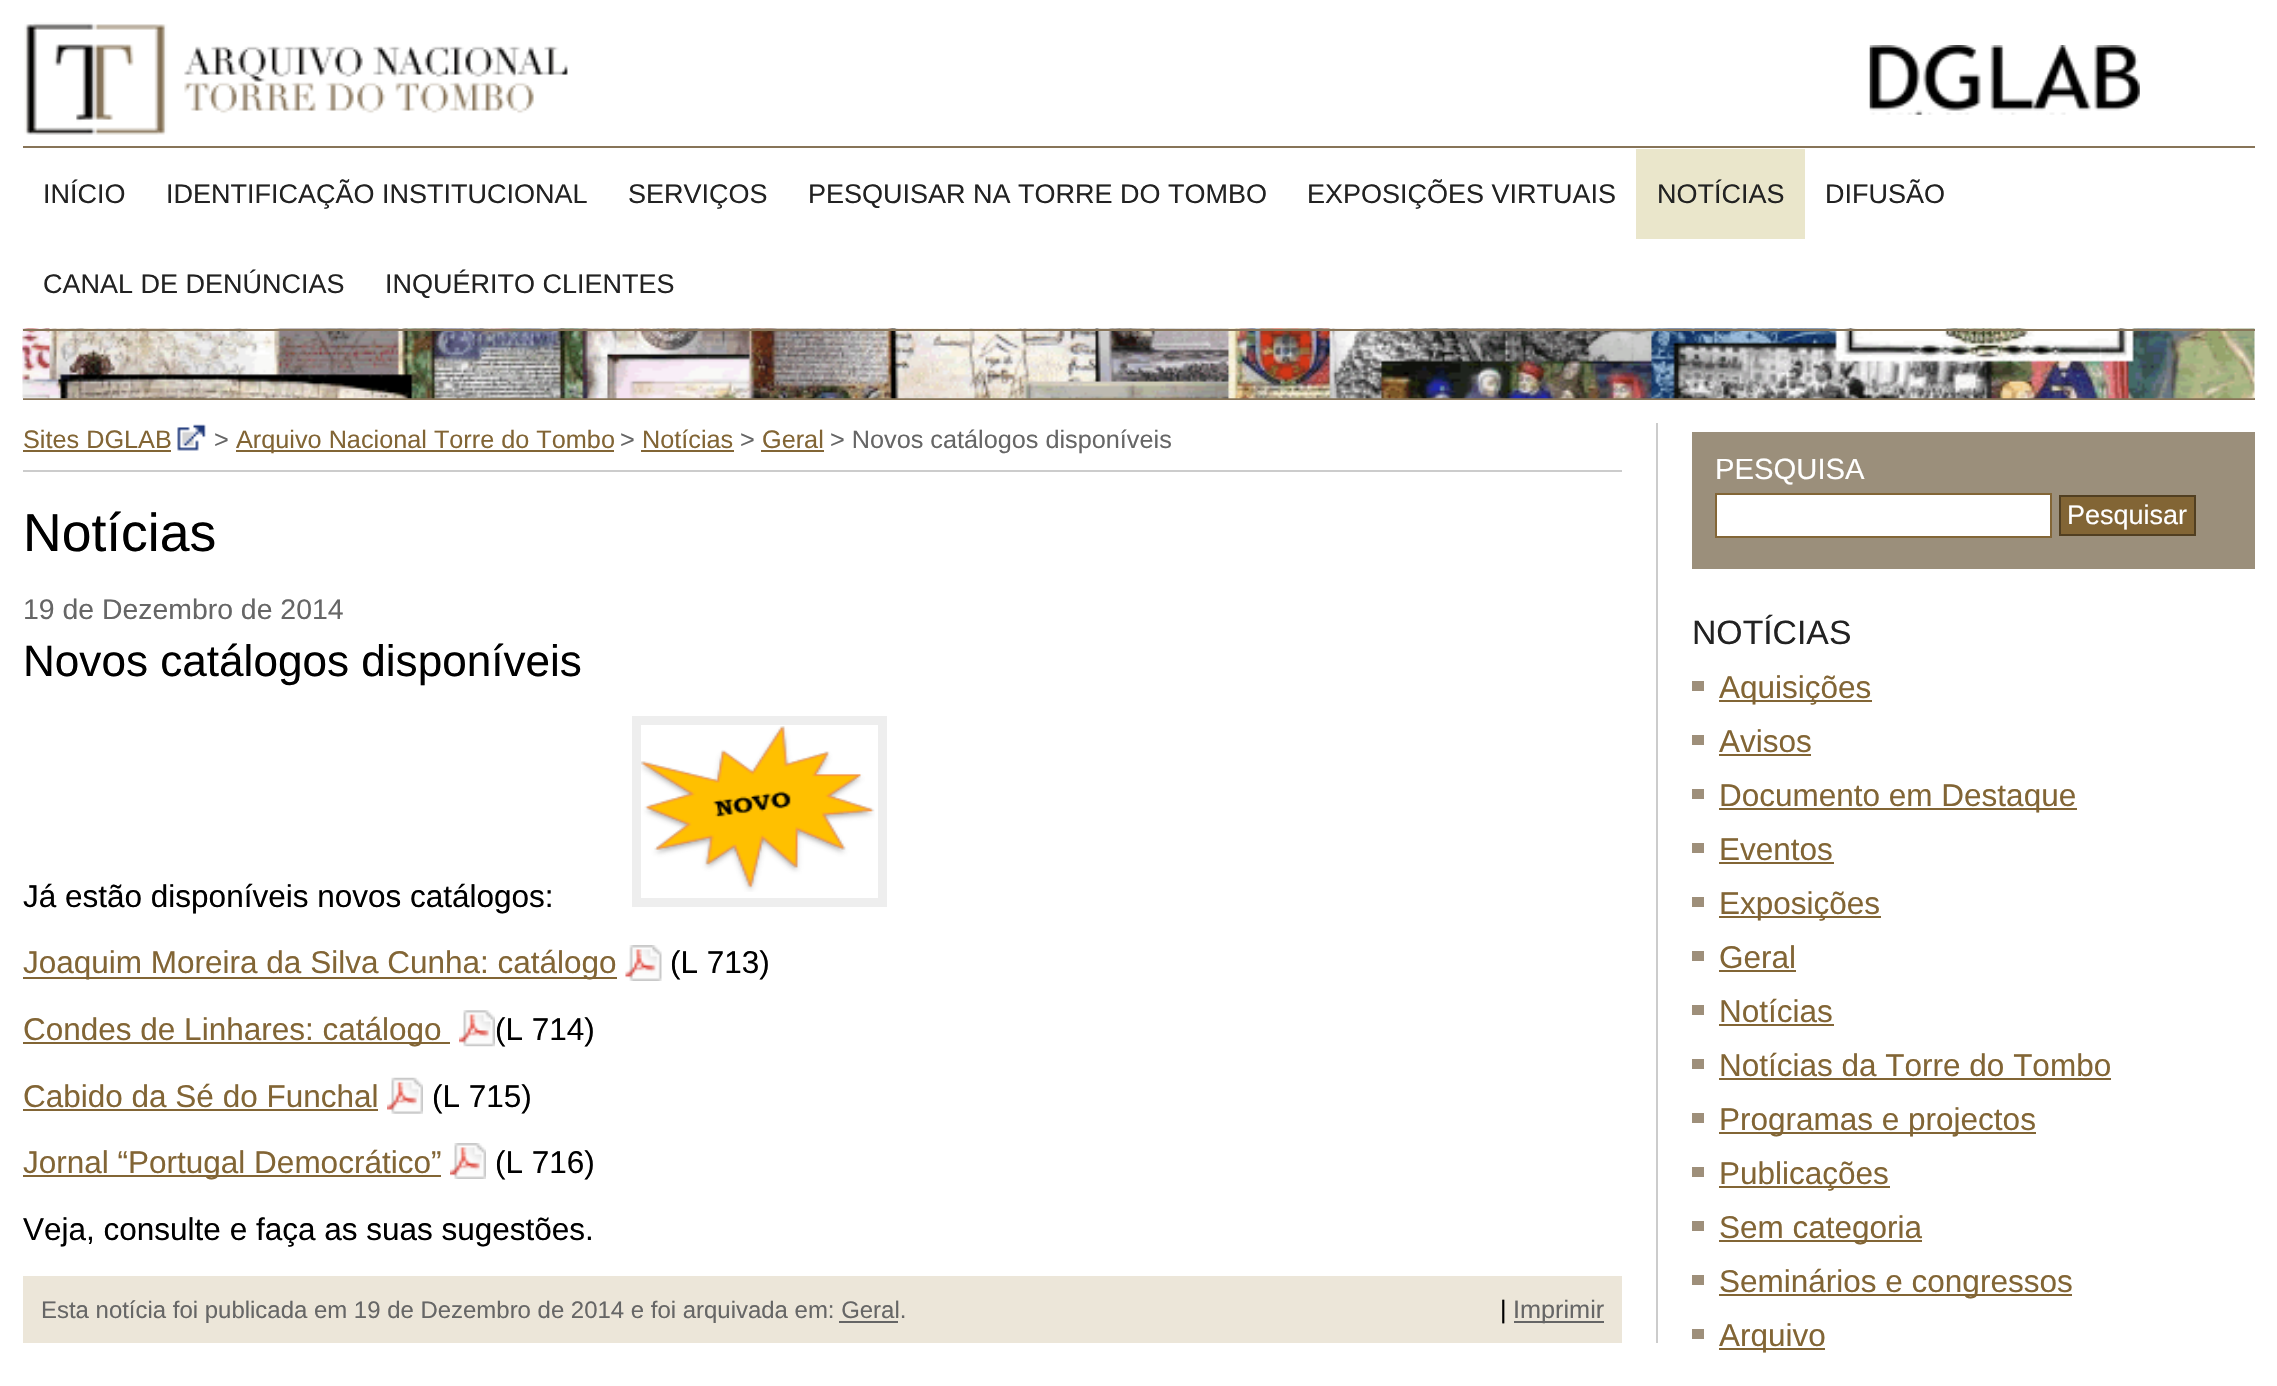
static SkFont makeFont(const char* family, int weight, float size, bool italic = false) {
  SkFontStyle style(weight, SkFontStyle::kNormal_Width,
    italic ? SkFontStyle::kItalic_Slant : SkFontStyle::kUpright_Slant);
  SkFont result(fontMgr->matchFamilyStyle(family, style), size);
  result.setSubpixel(true);
  return result;
}

static void text(SkCanvas* c, const char* s, float x, float y, const SkFont& font, SkColor color) {
  SkPaint ink(SkColor4f::FromColor(color));
  ink.setAntiAlias(true);
  c->drawString(s, x, y, font, ink);
}

static void box(SkCanvas* c, float l, float t, float r, float b, SkColor color) {
  SkPaint ink(SkColor4f::FromColor(color));
  ink.setAntiAlias(true);
  c->drawRect(SkRect::MakeLTRB(l, t, r, b), ink);
}

static void picture(SkCanvas* c, const char* path, float l, float t, float r, float b) {
  auto image = SkImages::DeferredFromEncodedData(SkData::MakeFromFileName(path));
  c->drawImageRect(image, SkRect::MakeLTRB(l, t, r, b), SkSamplingOptions());
}

void draw(SkCanvas* c) {
  SkPaint paint;
  paint.setAntiAlias(true);
  c->clear(0xffffffff);
  box(c, 23, 146, 2255, 148, 0xff877458);
  picture(c, "img_01.png", 24, 22, 568, 135);
  picture(c, "img_02.png", 1869, 45, 2140, 115);
  SkFont face1 = makeFont("Liberation Sans", 400, 27);
  text(c, "INÍCIO", 43, 203, face1, 0xff222222);
  text(c, "IDENTIFICAÇÃO INSTITUCIONAL", 166, 203, face1, 0xff222222);
  text(c, "SERVIÇOS", 628, 203, face1, 0xff222222);
  text(c, "PESQUISAR NA TORRE DO TOMBO", 808, 203, face1, 0xff222222);
  text(c, "EXPOSIÇÕES VIRTUAIS", 1307, 203, face1, 0xff222222);
  box(c, 1636, 149, 1805, 239, 0xffeae6cb);
  text(c, "NOTÍCIAS", 1657, 203, face1, 0xff222222);
  text(c, "DIFUSÃO", 1825, 203, face1, 0xff222222);
  text(c, "CANAL DE DENÚNCIAS", 43, 293, face1, 0xff222222);
  text(c, "INQUÉRITO CLIENTES", 385, 293, face1, 0xff222222);
  box(c, 23, 398, 2255, 400, 0xff877458);
  picture(c, "img_03.png", 22, 328, 2255, 399);
  box(c, 23, 329, 2255, 331, 0xff877458);
  box(c, 1656, 423, 1658, 1343, 0xffcccccc);
  box(c, 23, 470, 1622, 472, 0xffcccccc);
  SkFont face2 = makeFont("Liberation Sans", 400, 25.25f);
  text(c, "Sites DGLAB", 23, 448, face2, 0xff826535);
  box(c, 23, 450, 171, 452, 0xff826535);
  picture(c, "img_04.png", 177, 424, 206, 451);
  text(c, ">", 214, 448, face2, 0xff666666);
  box(c, 236, 450, 614, 452, 0xff826535);
  text(c, "Arquivo Nacional Torre do Tombo", 236, 448, face2, 0xff826535);
  text(c, ">", 620, 448, face2, 0xff666666);
  text(c, "Notícias", 642, 448, face2, 0xff826535);
  box(c, 641, 450, 734, 452, 0xff826535);
  text(c, ">", 740, 448, face2, 0xff666666);
  text(c, "Geral", 762, 448, face2, 0xff826535);
  box(c, 761, 450, 824, 452, 0xff826535);
  text(c, "> Novos catálogos disponíveis", 830, 448, face2, 0xff666666);
  SkFont face3 = makeFont("Liberation Sans", 400, 53.5f);
  text(c, "Notícias", 23, 551, face3, 0xff000000);
  SkFont face4 = makeFont("Liberation Sans", 400, 28.4f);
  text(c, "19 de Dezembro de 2014", 23, 619, face4, 0xff666666);
  SkFont face5 = makeFont("Liberation Sans", 400, 44.1f);
  text(c, "Novos catálogos disponíveis", 23, 676, face5, 0xff000000);
  paint.setStyle(SkPaint::kStroke_Style);
  paint.setStrokeWidth(9);
  paint.setColor(0xffeeeeee);
  c->drawRect(SkRect::MakeLTRB(636.5f, 720.5f, 882.5f, 902.5f), paint);
  picture(c, "img_05.png", 641, 726, 875, 892);
  SkFont face6 = makeFont("Liberation Sans", 400, 31.5f);
  text(c, "Já estão disponíveis novos catálogos:", 23, 907, face6, 0xff000000);
  box(c, 23, 977, 617, 979, 0xff826535);
  text(c, "Joaquim Moreira da Silva Cunha: catálogo", 23, 973, face6, 0xff826535);
  picture(c, "img_06.png", 625, 945, 662, 981);
  text(c, "(L 713)", 670, 973, face6, 0xff000000);
  box(c, 23, 1042, 450, 1044, 0xff826535);
  text(c, "Condes de Linhares: catálogo", 23, 1040, face6, 0xff826535);
  picture(c, "img_07.png", 459, 1010, 495, 1047);
  text(c, "(L 714)", 495, 1040, face6, 0xff000000);
  text(c, "Cabido da Sé do Funchal", 23, 1107, face6, 0xff826535);
  box(c, 23, 1109, 378, 1111, 0xff826535);
  picture(c, "img_08.png", 387, 1077, 423, 1114);
  text(c, "(L 715)", 432, 1107, face6, 0xff000000);
  box(c, 23, 1175, 441, 1177, 0xff826535);
  text(c, "Jornal “Portugal Democrático”", 23, 1173, face6, 0xff826535);
  picture(c, "img_09.png", 450, 1143, 486, 1179);
  text(c, "(L 716)", 495, 1173, face6, 0xff000000);
  text(c, "Veja, consulte e faça as suas sugestões.", 23, 1240, face6, 0xff000000);
  box(c, 23, 1276, 1622, 1343, 0xffece6d9);
  SkFont face7 = makeFont("Liberation Sans", 400, 23.95f);
  text(c, "Esta notícia foi publicada em 19 de Dezembro de 2014 e foi arquivada em: Geral.", 41, 1318, face7, 0xff666666);
  box(c, 839, 1321, 898, 1323, 0xff666666);
  text(c, "|", 1500, 1318, face2, 0xff000000);
  box(c, 1514, 1321, 1604, 1323, 0xff666666);
  text(c, "Imprimir", 1513, 1318, face2, 0xff666666);
  box(c, 1692, 432, 2255, 569, 0xff9b8f7b);
  SkFont face8 = makeFont("Liberation Sans", 400, 29.25f);
  text(c, "PESQUISA", 1715, 479, face8, 0xffffffff);
  paint.setStyle(SkPaint::kFill_Style);
  paint.setColor(0xffffffff);
  c->drawRect(SkRect::MakeLTRB(1716, 494, 2051, 537), paint);
  paint.setStyle(SkPaint::kStroke_Style);
  paint.setStrokeWidth(2);
  paint.setColor(0xff836637);
  c->drawRect(SkRect::MakeLTRB(1716, 494, 2051, 537), paint);
  paint.setStyle(SkPaint::kFill_Style);
  paint.setColor(0xff826535);
  c->drawRect(SkRect::MakeLTRB(2060, 496, 2195, 535), paint);
  paint.setStyle(SkPaint::kStroke_Style);
  paint.setColor(0xff513f21);
  c->drawRect(SkRect::MakeLTRB(2060, 496, 2195, 535), paint);
  text(c, "Pesquisar", 2067, 524, face1, 0xffffffff);
  SkFont face9 = makeFont("Liberation Sans", 400, 33.75f);
  text(c, "NOTÍCIAS", 1692, 644, face9, 0xff222222);
  box(c, 1692, 681, 1704, 691, 0xff9e8f7a);
  box(c, 1719, 700, 1872, 702, 0xff826535);
  text(c, "Aquisições", 1719, 698, face6, 0xff826535);
  box(c, 1692, 735, 1704, 745, 0xff9e8f7a);
  text(c, "Avisos", 1719, 752, face6, 0xff826535);
  box(c, 1719, 754, 1811, 756, 0xff826535);
  box(c, 1692, 789, 1704, 799, 0xff9e8f7a);
  box(c, 1719, 808, 2077, 810, 0xff826535);
  text(c, "Documento em Destaque", 1719, 806, face6, 0xff826535);
  box(c, 1692, 843, 1704, 853, 0xff9e8f7a);
  text(c, "Eventos", 1719, 860, face6, 0xff826535);
  box(c, 1719, 862, 1834, 864, 0xff826535);
  box(c, 1692, 897, 1704, 907, 0xff9e8f7a);
  box(c, 1719, 916, 1881, 918, 0xff826535);
  text(c, "Exposições", 1719, 914, face6, 0xff826535);
  box(c, 1692, 951, 1704, 961, 0xff9e8f7a);
  text(c, "Geral", 1719, 968, face6, 0xff826535);
  box(c, 1719, 970, 1796, 972, 0xff826535);
  box(c, 1692, 1005, 1704, 1015, 0xff9e8f7a);
  text(c, "Notícias", 1719, 1022, face6, 0xff826535);
  box(c, 1719, 1024, 1834, 1026, 0xff826535);
  box(c, 1692, 1059, 1704, 1069, 0xff9e8f7a);
  text(c, "Notícias da Torre do Tombo", 1719, 1076, face6, 0xff826535);
  box(c, 1719, 1078, 2111, 1080, 0xff826535);
  box(c, 1692, 1113, 1704, 1123, 0xff9e8f7a);
  box(c, 1719, 1132, 2036, 1134, 0xff826535);
  text(c, "Programas e projectos", 1719, 1130, face6, 0xff826535);
  box(c, 1692, 1167, 1704, 1177, 0xff9e8f7a);
  box(c, 1719, 1186, 1890, 1188, 0xff826535);
  text(c, "Publicações", 1719, 1184, face6, 0xff826535);
  box(c, 1692, 1221, 1704, 1231, 0xff9e8f7a);
  box(c, 1719, 1240, 1922, 1242, 0xff826535);
  text(c, "Sem categoria", 1719, 1238, face6, 0xff826535);
  box(c, 1692, 1275, 1704, 1285, 0xff9e8f7a);
  box(c, 1719, 1294, 2072, 1296, 0xff826535);
  text(c, "Seminários e congressos", 1719, 1292, face6, 0xff826535);
  box(c, 1692, 1329, 1704, 1339, 0xff9e8f7a);
  box(c, 1719, 1348, 1825, 1350, 0xff826535);
  text(c, "Arquivo", 1719, 1346, face6, 0xff826535);
}
